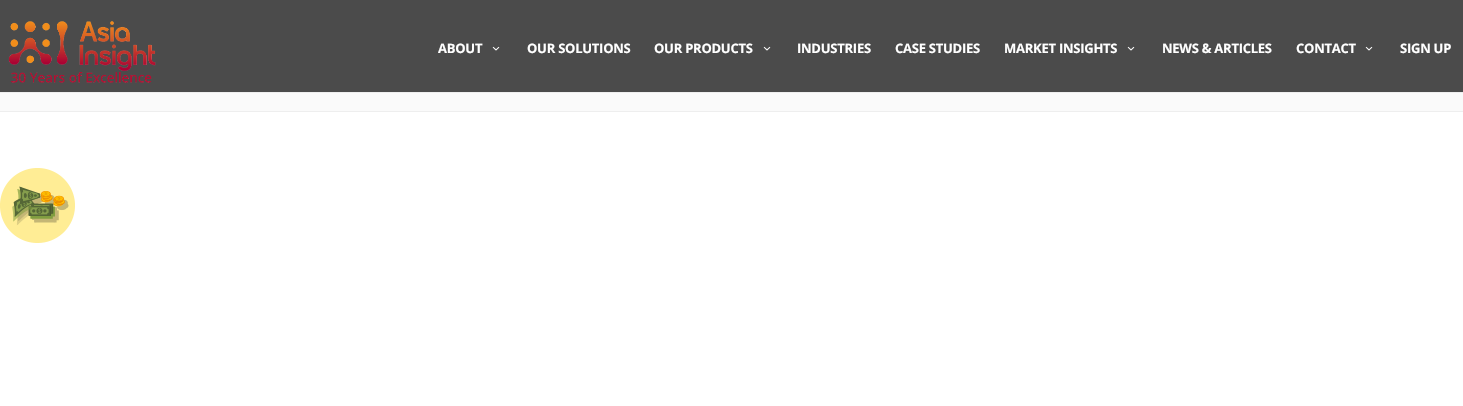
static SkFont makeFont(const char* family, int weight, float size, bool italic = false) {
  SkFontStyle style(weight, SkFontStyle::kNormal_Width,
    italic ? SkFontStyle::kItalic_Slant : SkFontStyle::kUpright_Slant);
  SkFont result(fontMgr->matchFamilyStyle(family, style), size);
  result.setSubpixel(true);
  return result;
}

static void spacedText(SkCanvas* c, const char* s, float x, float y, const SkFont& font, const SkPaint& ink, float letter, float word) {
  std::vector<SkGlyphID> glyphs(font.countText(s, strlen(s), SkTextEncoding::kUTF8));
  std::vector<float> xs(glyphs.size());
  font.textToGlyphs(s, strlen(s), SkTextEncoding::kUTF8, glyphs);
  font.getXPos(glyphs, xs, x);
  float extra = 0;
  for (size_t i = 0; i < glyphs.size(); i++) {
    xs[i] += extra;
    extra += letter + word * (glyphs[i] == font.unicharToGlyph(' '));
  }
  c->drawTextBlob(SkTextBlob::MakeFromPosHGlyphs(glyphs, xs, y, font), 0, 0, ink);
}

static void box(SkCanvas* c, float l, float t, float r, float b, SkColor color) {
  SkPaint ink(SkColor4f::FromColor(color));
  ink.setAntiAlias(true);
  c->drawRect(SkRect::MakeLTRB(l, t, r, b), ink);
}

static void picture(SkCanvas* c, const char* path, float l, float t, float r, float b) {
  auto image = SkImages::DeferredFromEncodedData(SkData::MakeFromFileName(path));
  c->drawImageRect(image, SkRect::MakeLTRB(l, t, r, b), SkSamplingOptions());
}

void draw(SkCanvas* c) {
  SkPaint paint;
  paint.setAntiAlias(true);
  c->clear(0xffffffff);
  paint.setColor(0xff4b4b4b);
  c->drawRect(SkRect::MakeLTRB(-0.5f, -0.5f, 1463.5f, 92.5f), paint);
  paint.setStyle(SkPaint::kStroke_Style);
  paint.setStrokeWidth(1);
  paint.setColor(0xffeeeeee);
  c->drawRect(SkRect::MakeLTRB(-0.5f, -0.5f, 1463.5f, 92.5f), paint);
  picture(c, "img_01.png", 8, 21, 156, 83);
  SkFont face1 = makeFont("Open Sans", 700, 13);
  paint.setStyle(SkPaint::kFill_Style);
  paint.setColor(0xffffffff);
  spacedText(c, "ABOUT", 438, 53, face1, paint, -0.25f, 0);
  picture(c, "img_02.png", 492, 46, 500, 51);
  spacedText(c, "OUR SOLUTIONS", 527, 53, face1, paint, -0.25f, 0);
  spacedText(c, "OUR PRODUCTS", 654, 53, face1, paint, -0.25f, 0);
  picture(c, "img_02.png", 763, 46, 771, 51);
  spacedText(c, "INDUSTRIES", 797, 53, face1, paint, -0.25f, 0);
  spacedText(c, "CASE STUDIES", 895, 53, face1, paint, -0.25f, 0);
  spacedText(c, "MARKET INSIGHTS", 1004, 53, face1, paint, -0.25f, 0);
  picture(c, "img_02.png", 1127, 46, 1135, 51);
  spacedText(c, "NEWS & ARTICLES", 1162, 53, face1, paint, -0.25f, 0);
  spacedText(c, "CONTACT", 1296, 53, face1, paint, -0.25f, 0);
  picture(c, "img_02.png", 1365, 46, 1373, 51);
  spacedText(c, "SIGN UP", 1400, 53, face1, paint, -0.25f, 0);
  box(c, 0, 93, 1463, 111, 0xfffafafa);
  box(c, 0, 111, 1463, 112, 0xffeeeeee);
  picture(c, "img_03.png", 0, 168, 75, 243);
}
